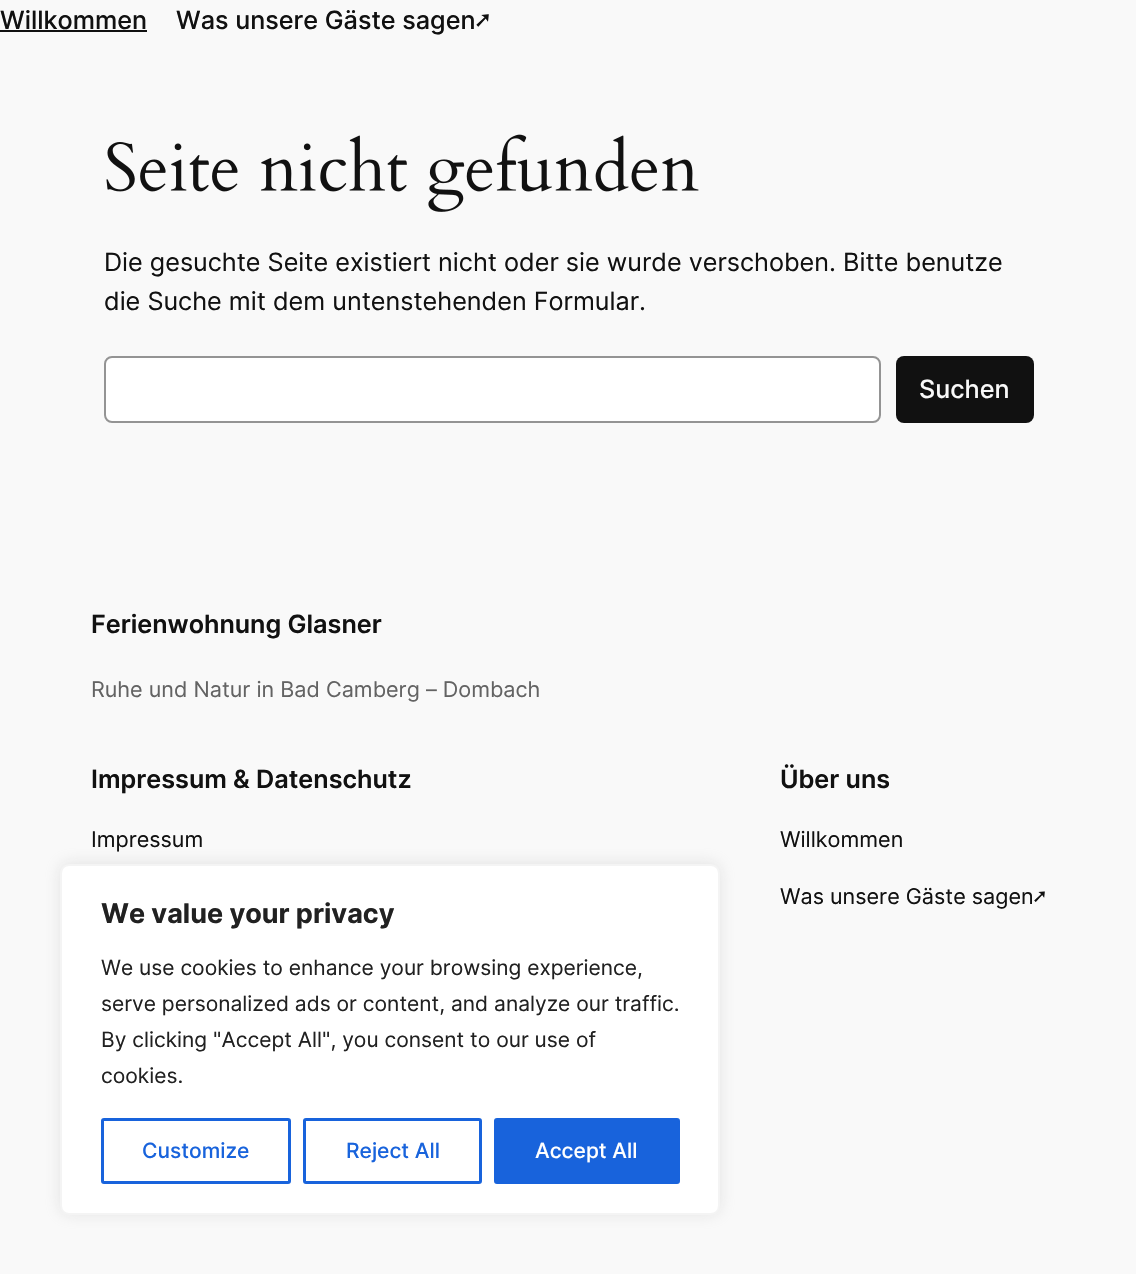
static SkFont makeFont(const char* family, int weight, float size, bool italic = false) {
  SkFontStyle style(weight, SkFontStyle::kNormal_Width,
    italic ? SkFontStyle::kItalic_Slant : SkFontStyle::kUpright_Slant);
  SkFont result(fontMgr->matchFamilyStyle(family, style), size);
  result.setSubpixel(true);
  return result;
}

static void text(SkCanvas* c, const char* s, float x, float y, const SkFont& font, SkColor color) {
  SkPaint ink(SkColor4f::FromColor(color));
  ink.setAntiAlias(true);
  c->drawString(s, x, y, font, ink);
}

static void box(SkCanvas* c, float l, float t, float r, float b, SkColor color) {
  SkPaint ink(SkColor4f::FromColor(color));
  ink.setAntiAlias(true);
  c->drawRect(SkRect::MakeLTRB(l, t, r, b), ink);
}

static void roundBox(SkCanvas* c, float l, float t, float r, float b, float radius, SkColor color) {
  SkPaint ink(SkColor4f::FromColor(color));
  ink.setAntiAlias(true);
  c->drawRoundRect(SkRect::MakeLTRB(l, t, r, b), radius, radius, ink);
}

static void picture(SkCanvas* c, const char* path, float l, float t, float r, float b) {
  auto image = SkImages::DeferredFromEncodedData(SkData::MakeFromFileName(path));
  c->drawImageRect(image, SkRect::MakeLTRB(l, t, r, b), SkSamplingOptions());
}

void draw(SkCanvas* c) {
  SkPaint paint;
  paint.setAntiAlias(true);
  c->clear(0xfff9f9f9);
  SkFont face1 = makeFont("Inter", 500, 25.2f);
  text(c, "Willkommen", 0, 29, face1, 0xff111111);
  box(c, 0, 30, 147, 32, 0xff111111);
  text(c, "Was unsere Gäste sagen", 176, 29, face1, 0xff111111);
  SkFont face2 = makeFont("DejaVu Sans Mono", 400, 25.2f);
  text(c, "➚", 475, 29, face2, 0xff111111);
  picture(c, "img_01.png", 106, 134, 699, 212);
  SkFont face3 = makeFont("Inter", 400, 25.2f);
  text(c, "Die gesuchte Seite existiert nicht oder sie wurde verschoben. Bitte benutze", 104, 271, face3, 0xff111111);
  text(c, "die Suche mit dem untenstehenden Formular.", 104, 310, face3, 0xff111111);
  paint.setColor(0xffffffff);
  c->drawRoundRect(SkRect::MakeLTRB(105, 357, 880, 422), 7, 7, paint);
  paint.setStyle(SkPaint::kStroke_Style);
  paint.setStrokeWidth(2);
  paint.setColor(0xff949494);
  c->drawRoundRect(SkRect::MakeLTRB(105, 357, 880, 422), 7, 7, paint);
  roundBox(c, 896, 356, 1034, 423, 8, 0xff111111);
  text(c, "Suchen", 919, 398, face1, 0xfff9f9f9);
  SkFont face4 = makeFont("Inter", 600, 25.2f);
  text(c, "Ferienwohnung Glasner", 91, 633, face4, 0xff111111);
  SkFont face5 = makeFont("Inter", 400, 21.6f);
  text(c, "Ruhe und Natur in Bad Camberg – Dombach", 91, 697, face5, 0xff636363);
  text(c, "Impressum & Datenschutz", 91, 788, face4, 0xff111111);
  text(c, "Impressum", 91, 847, face5, 0xff111111);
  text(c, "Über uns", 780, 788, face4, 0xff111111);
  text(c, "Willkommen", 780, 847, face5, 0xff111111);
  text(c, "Was unsere Gäste sagen", 780, 904, face5, 0xff111111);
  SkFont face6 = makeFont("DejaVu Sans Mono", 400, 21.6f);
  text(c, "➚", 1033, 904, face6, 0xff111111);
  paint.setStyle(SkPaint::kFill_Style);
  paint.setColor(0x4dacabab);
  paint.setMaskFilter(SkMaskFilter::MakeBlur(kNormal_SkBlurStyle, 7.5f));
  c->drawRoundRect(SkRect::MakeLTRB(60, 863, 720, 1214), 9, 9, paint);
  paint.setMaskFilter(nullptr);
  paint.setColor(0xffffffff);
  c->drawRoundRect(SkRect::MakeLTRB(61, 865, 719, 1214), 8, 8, paint);
  paint.setStyle(SkPaint::kStroke_Style);
  paint.setColor(0xfff4f4f4);
  c->drawRoundRect(SkRect::MakeLTRB(61, 865, 719, 1214), 8, 8, paint);
  SkFont face7 = makeFont("Inter", 700, 27);
  text(c, "We value your privacy", 101, 923, face7, 0xff212121);
  SkFont face8 = makeFont("Inter", 400, 21);
  text(c, "We use cookies to enhance your browsing experience,", 101, 975, face8, 0xff212121);
  text(c, "serve personalized ads or content, and analyze our traffic.", 101, 1011, face8, 0xff212121);
  text(c, "By clicking \"Accept All\", you consent to our use of", 101, 1047, face8, 0xff212121);
  text(c, "cookies.", 101, 1083, face8, 0xff212121);
  paint.setStrokeWidth(3);
  paint.setColor(0xff1863dc);
  c->drawRoundRect(SkRect::MakeLTRB(102.5f, 1119.5f, 289.5f, 1182.5f), 1.5f, 1.5f, paint);
  SkFont face9 = makeFont("Inter", 500, 21);
  text(c, "Customize", 142, 1158, face9, 0xff1863dc);
  c->drawRoundRect(SkRect::MakeLTRB(304.5f, 1119.5f, 480.5f, 1182.5f), 1.5f, 1.5f, paint);
  text(c, "Reject All", 346, 1158, face9, 0xff1863dc);
  paint.setStyle(SkPaint::kFill_Style);
  c->drawRoundRect(SkRect::MakeLTRB(495.5f, 1119.5f, 678.5f, 1182.5f), 1.5f, 1.5f, paint);
  paint.setStyle(SkPaint::kStroke_Style);
  c->drawRoundRect(SkRect::MakeLTRB(495.5f, 1119.5f, 678.5f, 1182.5f), 1.5f, 1.5f, paint);
  text(c, "Accept All", 535, 1158, face9, 0xffffffff);
}
